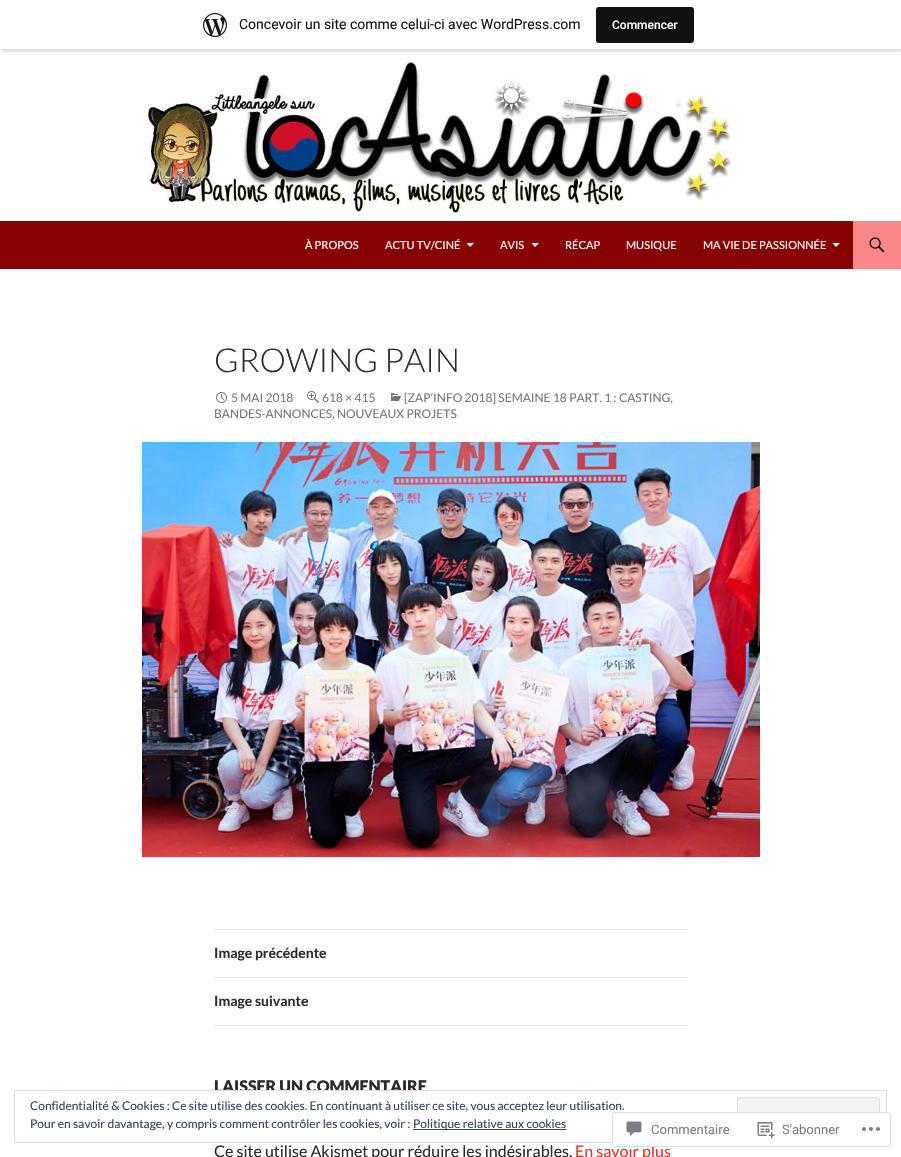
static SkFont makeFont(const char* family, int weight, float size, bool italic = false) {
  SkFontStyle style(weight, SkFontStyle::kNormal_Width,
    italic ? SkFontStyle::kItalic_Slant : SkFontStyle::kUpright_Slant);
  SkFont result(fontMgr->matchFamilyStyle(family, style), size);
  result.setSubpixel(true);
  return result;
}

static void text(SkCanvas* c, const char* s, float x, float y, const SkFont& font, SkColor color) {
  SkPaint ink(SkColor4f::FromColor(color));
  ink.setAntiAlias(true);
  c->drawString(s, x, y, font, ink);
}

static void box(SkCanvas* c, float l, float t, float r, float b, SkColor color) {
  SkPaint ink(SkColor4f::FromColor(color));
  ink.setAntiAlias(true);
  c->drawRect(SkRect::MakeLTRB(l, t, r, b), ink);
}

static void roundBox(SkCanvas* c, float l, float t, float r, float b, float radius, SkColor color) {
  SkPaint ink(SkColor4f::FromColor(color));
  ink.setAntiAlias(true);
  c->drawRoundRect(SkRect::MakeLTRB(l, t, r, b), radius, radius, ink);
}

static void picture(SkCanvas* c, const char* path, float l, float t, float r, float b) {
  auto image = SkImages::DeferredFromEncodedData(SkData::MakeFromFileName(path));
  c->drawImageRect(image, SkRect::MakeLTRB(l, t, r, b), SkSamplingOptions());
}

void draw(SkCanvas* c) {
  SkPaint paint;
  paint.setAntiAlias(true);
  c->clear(0xffffffff);
  paint.setColor(0x0d000000);
  paint.setMaskFilter(SkMaskFilter::MakeBlur(kNormal_SkBlurStyle, 1));
  c->drawRect(SkRect::MakeLTRB(0, 1, 901, 50), paint);
  paint.setMaskFilter(nullptr);
  paint.setColor(0x14000000);
  c->drawPath(SkPathBuilder().moveTo(1, 49).lineTo(1, 52).lineTo(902, 52).lineTo(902, 3).lineTo(901, 3).lineTo(901, 49).close().detach(), paint);
  box(c, 0, 0, 901, 49, 0xffffffff);
  picture(c, "img_01.png", 203, 13, 227, 37);
  SkFont face1 = makeFont("Roboto", 400, 14);
  text(c, "Concevoir un site comme celui-ci avec WordPress.com", 239, 29, face1, 0xff171717);
  roundBox(c, 596, 7, 694, 43, 3, 0xff111111);
  SkFont face2 = makeFont("Roboto", 500, 12);
  text(c, "Commencer", 612, 29, face2, 0xfff6f7f7);
  picture(c, "img_02.png", 144, 61, 732, 215);
  box(c, 0, 221, 853, 269, 0xff870202);
  SkFont face3 = makeFont("Lato", 400, 11);
  text(c, "À PROPOS", 305, 249, face3, 0xffffffff);
  text(c, "ACTU TV/CINÉ", 385, 249, face3, 0xffffffff);
  paint.setColor(0xffffffff);
  c->drawPath(SkPathBuilder().moveTo(466.5f, 243).lineTo(474, 243).lineTo(470, 247).close().detach(), paint);
  text(c, "AVIS", 500, 249, face3, 0xffffffff);
  c->drawPath(SkPathBuilder().moveTo(531.5f, 243).lineTo(539, 243).lineTo(535, 247).close().detach(), paint);
  text(c, "RÉCAP", 565, 249, face3, 0xffffffff);
  text(c, "MUSIQUE", 626, 249, face3, 0xffffffff);
  text(c, "MA VIE DE PASSIONNÉE", 703, 249, face3, 0xffffffff);
  c->drawPath(SkPathBuilder().moveTo(832.5f, 243).lineTo(840, 243).lineTo(836, 247).close().detach(), paint);
  box(c, 853, 221, 901, 269, 0xfffb8888);
  picture(c, "img_03.png", 869, 237, 885, 253);
  SkFont face4 = makeFont("Lato", 300, 33);
  text(c, "GROWING PAIN", 214, 372, face4, 0xff2b2b2b);
  picture(c, "img_04.png", 391, 393, 401, 401);
  SkFont face5 = makeFont("Lato", 400, 12);
  text(c, "[ZAP’INFO 2018] SEMAINE 18 PART. 1 : CASTING,", 404, 402, face5, 0xff767676);
  text(c, "BANDES-ANNONCES, NOUVEAUX PROJETS", 214, 418, face5, 0xff767676);
  picture(c, "img_05.png", 216, 392, 227, 403);
  text(c, "5 MAI 2018", 231, 402, face5, 0xff767676);
  picture(c, "img_06.png", 307, 391, 319, 403);
  text(c, "618 × 415", 322, 402, face5, 0xff767676);
  picture(c, "img_07.png", 142, 442, 760, 857);
  box(c, 214, 929, 688, 930, 0xffe6e6e6);
  box(c, 214, 977, 688, 978, 0xffe6e6e6);
  SkFont face6 = makeFont("Lato", 700, 14);
  text(c, "Image précédente", 214, 958, face6, 0xff2b2b2b);
  box(c, 214, 1025, 688, 1026, 0xffe6e6e6);
  text(c, "Image suivante", 214, 1006, face6, 0xff2b2b2b);
  SkFont face7 = makeFont("Lato", 900, 16);
  text(c, "LAISSER UN COMMENTAIRE", 214, 1092, face7, 0xff2b2b2b);
  SkFont face8 = makeFont("Lato", 400, 16);
  text(c, "Ce site utilise Akismet pour réduire les indésirables.", 214, 1157, face8, 0xff2b2b2b);
  text(c, "En savoir plus", 575, 1157, face8, 0xffe83030);
  box(c, 214, 1091, 426, 1093, 0xffffffff);
  paint.setStyle(SkPaint::kStroke_Style);
  paint.setStrokeWidth(1);
  paint.setColor(0xffdedede);
  c->drawRect(SkRect::MakeLTRB(14.5f, 1090.5f, 886.5f, 1142.5f), paint);
  text(c, "Confidentialité & Cookies : Ce site utilise des cookies. En continuant à utiliser ce site, vous acceptez leur utilisation.", 30, 1110, face5, 0xff2e4467);
  paint.setStyle(SkPaint::kFill_Style);
  paint.setColor(0xfff3f3f3);
  c->drawRoundRect(SkRect::MakeLTRB(737.5f, 1097.5f, 879.5f, 1135.5f), 2.5f, 2.5f, paint);
  paint.setStyle(SkPaint::kStroke_Style);
  paint.setColor(0xffdedede);
  c->drawRoundRect(SkRect::MakeLTRB(737.5f, 1097.5f, 879.5f, 1135.5f), 2.5f, 2.5f, paint);
  text(c, "Pour en savoir davantage, y compris comment contrôler les cookies, voir :", 30, 1128, face5, 0xff2e4467);
  box(c, 413, 1129, 566, 1130, 0xff2e4467);
  text(c, "Politique relative aux cookies", 413, 1128, face5, 0xff2e4467);
  roundBox(c, 612, 1112, 891, 1147, 3, 0xfaffffff);
  paint.setColor(0xfadcdcde);
  c->drawRoundRect(SkRect::MakeLTRB(612.5f, 1112.5f, 890.5f, 1146.5f), 2.5f, 2.5f, paint);
  picture(c, "img_08.png", 626, 1121, 642, 1137);
  SkFont face9 = makeFont("Roboto", 400, 13);
  text(c, "Commentaire", 651, 1134, face9, 0xff7b7f85);
  picture(c, "img_09.png", 757, 1122, 775, 1139);
  text(c, "S'abonner", 782, 1134, face9, 0xff7b7f85);
  picture(c, "img_10.png", 862, 1127, 880, 1131);
}
